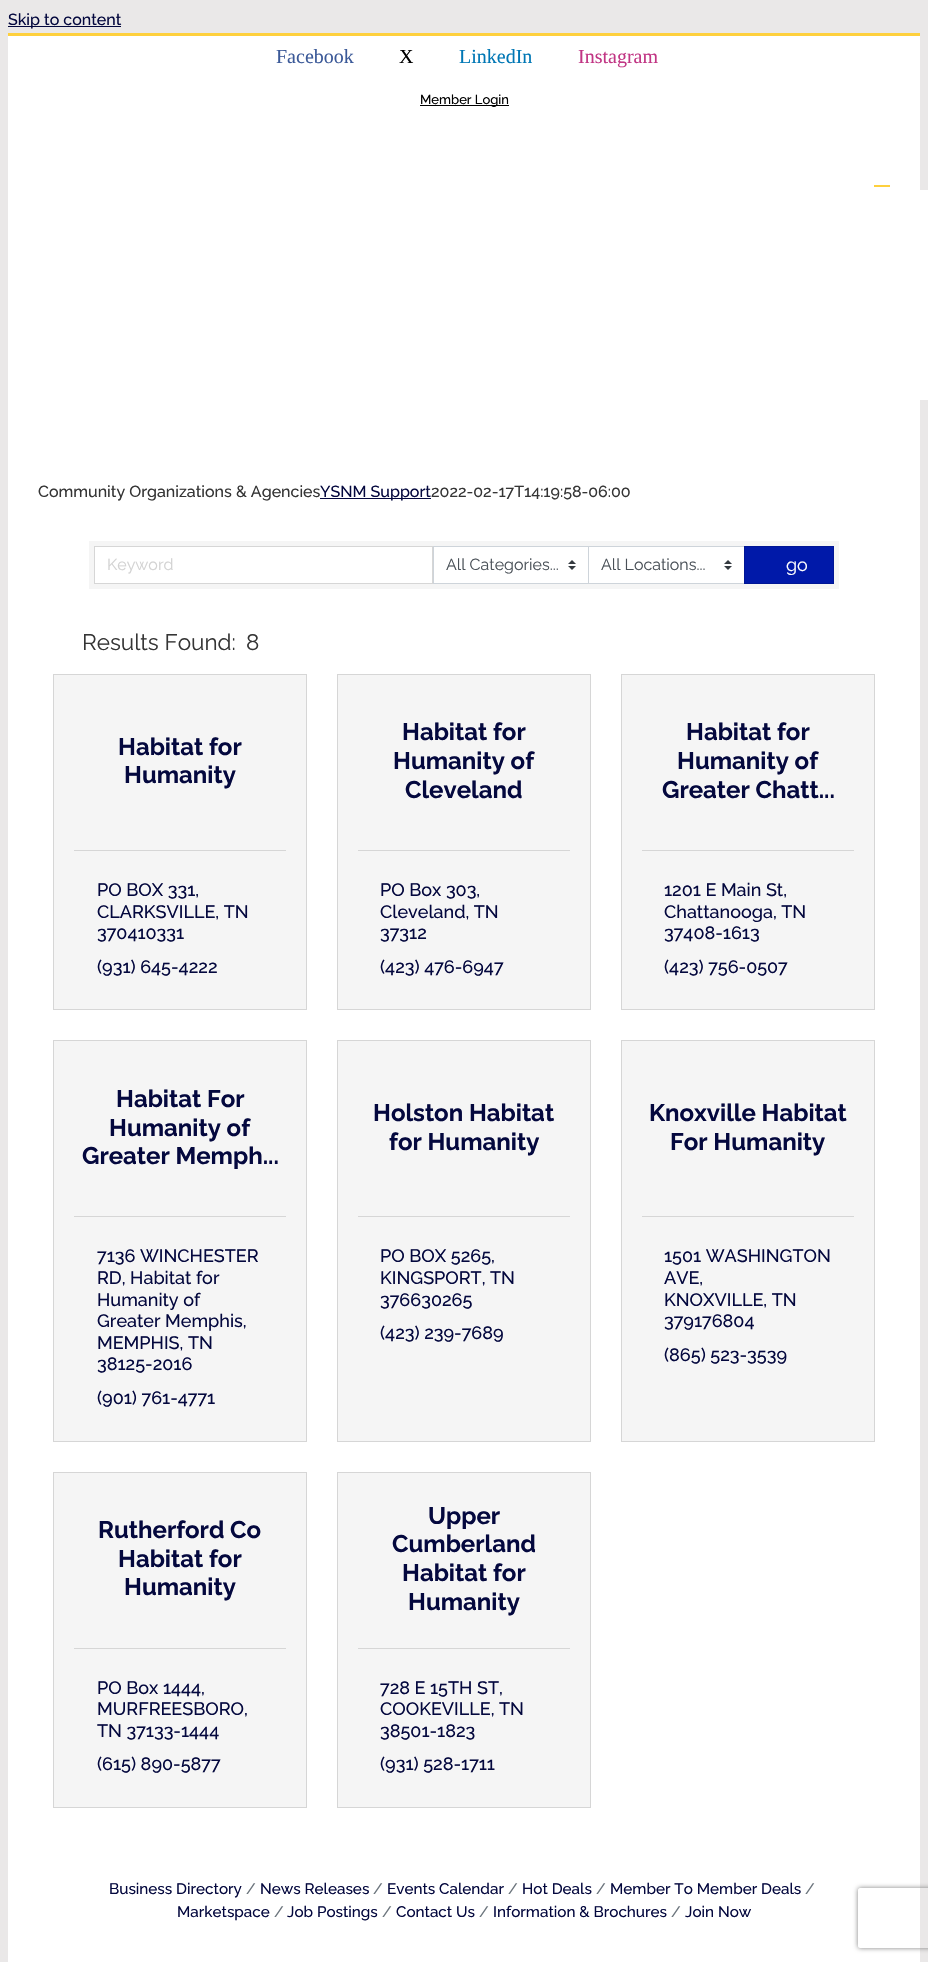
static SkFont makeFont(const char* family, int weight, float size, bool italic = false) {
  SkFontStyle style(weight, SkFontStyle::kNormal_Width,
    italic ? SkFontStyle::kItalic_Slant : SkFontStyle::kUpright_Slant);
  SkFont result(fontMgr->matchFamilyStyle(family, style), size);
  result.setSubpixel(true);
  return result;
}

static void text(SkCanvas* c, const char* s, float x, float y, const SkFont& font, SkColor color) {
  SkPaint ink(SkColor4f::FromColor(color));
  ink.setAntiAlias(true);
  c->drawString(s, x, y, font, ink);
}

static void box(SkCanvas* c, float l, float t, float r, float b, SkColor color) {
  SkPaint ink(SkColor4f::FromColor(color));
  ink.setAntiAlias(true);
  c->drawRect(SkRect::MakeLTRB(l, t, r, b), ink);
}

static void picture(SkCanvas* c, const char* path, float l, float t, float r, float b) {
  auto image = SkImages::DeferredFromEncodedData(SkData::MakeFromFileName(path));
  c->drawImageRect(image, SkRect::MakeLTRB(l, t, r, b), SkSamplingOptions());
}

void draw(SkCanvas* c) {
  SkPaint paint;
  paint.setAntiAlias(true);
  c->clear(0xffeae8e8);
  box(c, 8, 26, 121, 27, 0xff04083e);
  SkFont face1 = makeFont("Raleway", 500, 16);
  text(c, "Skip to content", 8, 25, face1, 0xff04083e);
  box(c, 8, 36, 920, 1962, 0xffffffff);
  box(c, 8, 33, 920, 36, 0xfffed03d);
  SkFont face2 = makeFont("Liberation Serif", 400, 20);
  text(c, "Facebook", 276, 63, face2, 0xff3b5998);
  text(c, "X", 399, 63, face2, 0xff000000);
  text(c, "LinkedIn", 459, 63, face2, 0xff0077b5);
  text(c, "Instagram", 578, 63, face2, 0xffc13584);
  box(c, 420, 105, 509, 106, 0xff000000);
  SkFont face3 = makeFont("Raleway", 500, 13);
  text(c, "Member Login", 420, 104, face3, 0xff000000);
  box(c, 874, 185, 890, 187, 0xfffed03d);
  box(c, 920, 190, 928, 400, 0xffffffff);
  text(c, "Community Organizations & Agencies", 38, 497, face1, 0xff353535);
  box(c, 320, 498, 431, 499, 0xff04083e);
  text(c, "YSNM Support", 320, 497, face1, 0xff04083e);
  text(c, "2022-02-17T14:19:58-06:00", 431, 497, face1, 0xff353535);
  box(c, 89, 541, 839, 589, 0xfff5f5f5);
  paint.setColor(0xffffffff);
  c->drawRect(SkRect::MakeLTRB(94.5f, 546.5f, 432.5f, 583.5f), paint);
  paint.setStyle(SkPaint::kStroke_Style);
  paint.setStrokeWidth(1);
  paint.setColor(0xffd6d6d6);
  c->drawRect(SkRect::MakeLTRB(94.5f, 546.5f, 432.5f, 583.5f), paint);
  SkFont face4 = makeFont("Raleway", 400, 16);
  text(c, "Keyword", 107, 570, face4, 0xffd2d2d2);
  box(c, 434, 547, 588, 583, 0xffffffff);
  picture(c, "img_01.png", 568, 560, 576, 570);
  paint.setColor(0xffced4da);
  c->drawRect(SkRect::MakeLTRB(433.5f, 546.5f, 588.5f, 583.5f), paint);
  text(c, "All Categories...", 446, 570, face4, 0xff495057);
  box(c, 589, 547, 744, 583, 0xffffffff);
  picture(c, "img_01.png", 724, 560, 732, 570);
  c->drawRect(SkRect::MakeLTRB(588.5f, 546.5f, 744.5f, 583.5f), paint);
  text(c, "All Locations...", 601, 570, face4, 0xff495057);
  paint.setStyle(SkPaint::kFill_Style);
  paint.setColor(0xff0019a9);
  c->drawRect(SkRect::MakeLTRB(744.5f, 546.5f, 833.5f, 583.5f), paint);
  paint.setStyle(SkPaint::kStroke_Style);
  paint.setColor(0xff001694);
  c->drawRect(SkRect::MakeLTRB(744.5f, 546.5f, 833.5f, 583.5f), paint);
  SkFont face5 = makeFont("Raleway", 400, 18);
  text(c, "go", 786, 571, face5, 0xffffffff);
  SkFont face6 = makeFont("Raleway", 400, 22.5f);
  text(c, "Results Found:", 82, 650, face6, 0xff353535);
  text(c, "8", 246, 650, face6, 0xff353535);
  paint.setStyle(SkPaint::kFill_Style);
  paint.setColor(0xfff5f5f5);
  c->drawRect(SkRect::MakeLTRB(53.5f, 674.5f, 306.5f, 1009.5f), paint);
  paint.setStyle(SkPaint::kStroke_Style);
  paint.setColor(0xffd6d6d6);
  c->drawRect(SkRect::MakeLTRB(53.5f, 674.5f, 306.5f, 1009.5f), paint);
  SkFont face7 = makeFont("Raleway", 700, 24);
  text(c, "Habitat for", 118, 755, face7, 0xff04083e);
  text(c, "Humanity", 124, 783, face7, 0xff04083e);
  box(c, 74, 850, 286, 851, 0xffd6d6d6);
  SkFont face8 = makeFont("Raleway", 500, 18);
  text(c, "PO BOX 331,", 97, 896, face8, 0xff04083e);
  text(c, "CLARKSVILLE, TN", 97, 918, face8, 0xff04083e);
  text(c, "370410331", 97, 939, face8, 0xff04083e);
  text(c, "(931) 645-4222", 97, 973, face8, 0xff04083e);
  paint.setStyle(SkPaint::kFill_Style);
  paint.setColor(0xfff5f5f5);
  c->drawRect(SkRect::MakeLTRB(337.5f, 674.5f, 590.5f, 1009.5f), paint);
  paint.setStyle(SkPaint::kStroke_Style);
  paint.setColor(0xffd6d6d6);
  c->drawRect(SkRect::MakeLTRB(337.5f, 674.5f, 590.5f, 1009.5f), paint);
  text(c, "Habitat for", 402, 740, face7, 0xff04083e);
  text(c, "Humanity of", 393, 769, face7, 0xff04083e);
  text(c, "Cleveland", 405, 798, face7, 0xff04083e);
  box(c, 358, 850, 570, 851, 0xffd6d6d6);
  text(c, "PO Box 303,", 380, 896, face8, 0xff04083e);
  text(c, "Cleveland, TN", 380, 918, face8, 0xff04083e);
  text(c, "37312", 380, 939, face8, 0xff04083e);
  text(c, "(423) 476-6947", 380, 973, face8, 0xff04083e);
  paint.setStyle(SkPaint::kFill_Style);
  paint.setColor(0xfff5f5f5);
  c->drawRect(SkRect::MakeLTRB(621.5f, 674.5f, 874.5f, 1009.5f), paint);
  paint.setStyle(SkPaint::kStroke_Style);
  paint.setColor(0xffd6d6d6);
  c->drawRect(SkRect::MakeLTRB(621.5f, 674.5f, 874.5f, 1009.5f), paint);
  text(c, "Habitat for", 686, 740, face7, 0xff04083e);
  text(c, "Humanity of", 677, 769, face7, 0xff04083e);
  text(c, "Greater Chatt...", 662, 798, face7, 0xff04083e);
  box(c, 642, 850, 854, 851, 0xffd6d6d6);
  text(c, "1201 E Main St,", 664, 896, face8, 0xff04083e);
  text(c, "Chattanooga, TN", 664, 918, face8, 0xff04083e);
  text(c, "37408-1613", 664, 939, face8, 0xff04083e);
  text(c, "(423) 756-0507", 664, 973, face8, 0xff04083e);
  paint.setStyle(SkPaint::kFill_Style);
  paint.setColor(0xfff5f5f5);
  c->drawRect(SkRect::MakeLTRB(53.5f, 1040.5f, 306.5f, 1441.5f), paint);
  paint.setStyle(SkPaint::kStroke_Style);
  paint.setColor(0xffd6d6d6);
  c->drawRect(SkRect::MakeLTRB(53.5f, 1040.5f, 306.5f, 1441.5f), paint);
  text(c, "Habitat For", 116, 1107, face7, 0xff04083e);
  text(c, "Humanity of", 109, 1136, face7, 0xff04083e);
  text(c, "Greater Memph...", 82, 1164, face7, 0xff04083e);
  box(c, 74, 1216, 286, 1217, 0xffd6d6d6);
  text(c, "7136 WINCHESTER", 97, 1262, face8, 0xff04083e);
  text(c, "RD, Habitat for", 97, 1284, face8, 0xff04083e);
  text(c, "Humanity of", 97, 1306, face8, 0xff04083e);
  text(c, "Greater Memphis,", 97, 1327, face8, 0xff04083e);
  text(c, "MEMPHIS, TN", 97, 1349, face8, 0xff04083e);
  text(c, "38125-2016", 97, 1370, face8, 0xff04083e);
  text(c, "(901) 761-4771", 97, 1404, face8, 0xff04083e);
  paint.setStyle(SkPaint::kFill_Style);
  paint.setColor(0xfff5f5f5);
  c->drawRect(SkRect::MakeLTRB(337.5f, 1040.5f, 590.5f, 1441.5f), paint);
  paint.setStyle(SkPaint::kStroke_Style);
  paint.setColor(0xffd6d6d6);
  c->drawRect(SkRect::MakeLTRB(337.5f, 1040.5f, 590.5f, 1441.5f), paint);
  text(c, "Holston Habitat", 373, 1121, face7, 0xff04083e);
  text(c, "for Humanity", 389, 1150, face7, 0xff04083e);
  box(c, 358, 1216, 570, 1217, 0xffd6d6d6);
  text(c, "PO BOX 5265,", 380, 1262, face8, 0xff04083e);
  text(c, "KINGSPORT, TN", 380, 1284, face8, 0xff04083e);
  text(c, "376630265", 380, 1306, face8, 0xff04083e);
  text(c, "(423) 239-7689", 380, 1339, face8, 0xff04083e);
  paint.setStyle(SkPaint::kFill_Style);
  paint.setColor(0xfff5f5f5);
  c->drawRect(SkRect::MakeLTRB(621.5f, 1040.5f, 874.5f, 1441.5f), paint);
  paint.setStyle(SkPaint::kStroke_Style);
  paint.setColor(0xffd6d6d6);
  c->drawRect(SkRect::MakeLTRB(621.5f, 1040.5f, 874.5f, 1441.5f), paint);
  text(c, "Knoxville Habitat", 649, 1121, face7, 0xff04083e);
  text(c, "For Humanity", 670, 1150, face7, 0xff04083e);
  box(c, 642, 1216, 854, 1217, 0xffd6d6d6);
  text(c, "1501 WASHINGTON", 664, 1262, face8, 0xff04083e);
  text(c, "AVE,", 664, 1284, face8, 0xff04083e);
  text(c, "KNOXVILLE, TN", 664, 1306, face8, 0xff04083e);
  text(c, "379176804", 664, 1327, face8, 0xff04083e);
  text(c, "(865) 523-3539", 664, 1361, face8, 0xff04083e);
  paint.setStyle(SkPaint::kFill_Style);
  paint.setColor(0xfff5f5f5);
  c->drawRect(SkRect::MakeLTRB(53.5f, 1472.5f, 306.5f, 1807.5f), paint);
  paint.setStyle(SkPaint::kStroke_Style);
  paint.setColor(0xffd6d6d6);
  c->drawRect(SkRect::MakeLTRB(53.5f, 1472.5f, 306.5f, 1807.5f), paint);
  text(c, "Rutherford Co", 98, 1538, face7, 0xff04083e);
  text(c, "Habitat for", 118, 1567, face7, 0xff04083e);
  text(c, "Humanity", 124, 1595, face7, 0xff04083e);
  box(c, 74, 1648, 286, 1649, 0xffd6d6d6);
  text(c, "PO Box 1444,", 97, 1694, face8, 0xff04083e);
  text(c, "MURFREESBORO,", 97, 1715, face8, 0xff04083e);
  text(c, "TN 37133-1444", 97, 1737, face8, 0xff04083e);
  text(c, "(615) 890-5877", 97, 1770, face8, 0xff04083e);
  paint.setStyle(SkPaint::kFill_Style);
  paint.setColor(0xfff5f5f5);
  c->drawRect(SkRect::MakeLTRB(337.5f, 1472.5f, 590.5f, 1807.5f), paint);
  paint.setStyle(SkPaint::kStroke_Style);
  paint.setColor(0xffd6d6d6);
  c->drawRect(SkRect::MakeLTRB(337.5f, 1472.5f, 590.5f, 1807.5f), paint);
  text(c, "Upper", 428, 1524, face7, 0xff04083e);
  text(c, "Cumberland", 392, 1552, face7, 0xff04083e);
  text(c, "Habitat for", 402, 1581, face7, 0xff04083e);
  text(c, "Humanity", 408, 1610, face7, 0xff04083e);
  box(c, 358, 1648, 570, 1649, 0xffd6d6d6);
  text(c, "728 E 15TH ST,", 380, 1694, face8, 0xff04083e);
  text(c, "COOKEVILLE, TN", 380, 1715, face8, 0xff04083e);
  text(c, "38501-1823", 380, 1737, face8, 0xff04083e);
  text(c, "(931) 528-1711", 380, 1770, face8, 0xff04083e);
  SkFont face9 = makeFont("Raleway", 500, 15.25f);
  text(c, "Business Directory", 109, 1894, face9, 0xff04083e);
  text(c, "/", 246, 1894, face9, 0xff6c757d);
  text(c, "News Releases", 260, 1894, face9, 0xff04083e);
  text(c, "/", 373, 1894, face9, 0xff6c757d);
  text(c, "Events Calendar", 387, 1894, face9, 0xff04083e);
  text(c, "/", 508, 1894, face9, 0xff6c757d);
  text(c, "Hot Deals", 522, 1894, face9, 0xff04083e);
  text(c, "/", 596, 1894, face9, 0xff6c757d);
  text(c, "Member To Member Deals", 610, 1894, face9, 0xff04083e);
  text(c, "/", 805, 1894, face9, 0xff6c757d);
  text(c, "Marketspace", 177, 1917, face9, 0xff04083e);
  text(c, "/", 274, 1917, face9, 0xff6c757d);
  text(c, "Job Postings", 287, 1917, face9, 0xff04083e);
  text(c, "/", 382, 1917, face9, 0xff6c757d);
  text(c, "Contact Us", 396, 1917, face9, 0xff04083e);
  text(c, "/", 479, 1917, face9, 0xff6c757d);
  text(c, "Information & Brochures", 493, 1917, face9, 0xff04083e);
  text(c, "/", 671, 1917, face9, 0xff6c757d);
  text(c, "Join Now", 685, 1917, face9, 0xff04083e);
  c->save();
  c->clipPath(SkPathBuilder(SkPathFillType::kEvenOdd).moveTo(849, 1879).lineTo(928, 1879).lineTo(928, 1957).lineTo(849, 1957).close().moveTo(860, 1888).lineTo(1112, 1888).cubicTo(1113, 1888, 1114, 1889, 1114, 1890).lineTo(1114, 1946).cubicTo(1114, 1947, 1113, 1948, 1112, 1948).lineTo(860, 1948).cubicTo(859, 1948, 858, 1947, 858, 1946).lineTo(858, 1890).cubicTo(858, 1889, 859, 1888, 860, 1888).close().detach(), true);
  paint.setStyle(SkPaint::kFill_Style);
  paint.setColor(0xff808080);
  paint.setMaskFilter(SkMaskFilter::MakeBlur(kNormal_SkBlurStyle, 2.5f));
  c->drawRoundRect(SkRect::MakeLTRB(858, 1888, 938, 1948), 2, 2, paint);
  paint.setMaskFilter(nullptr);
  c->restore();
}
